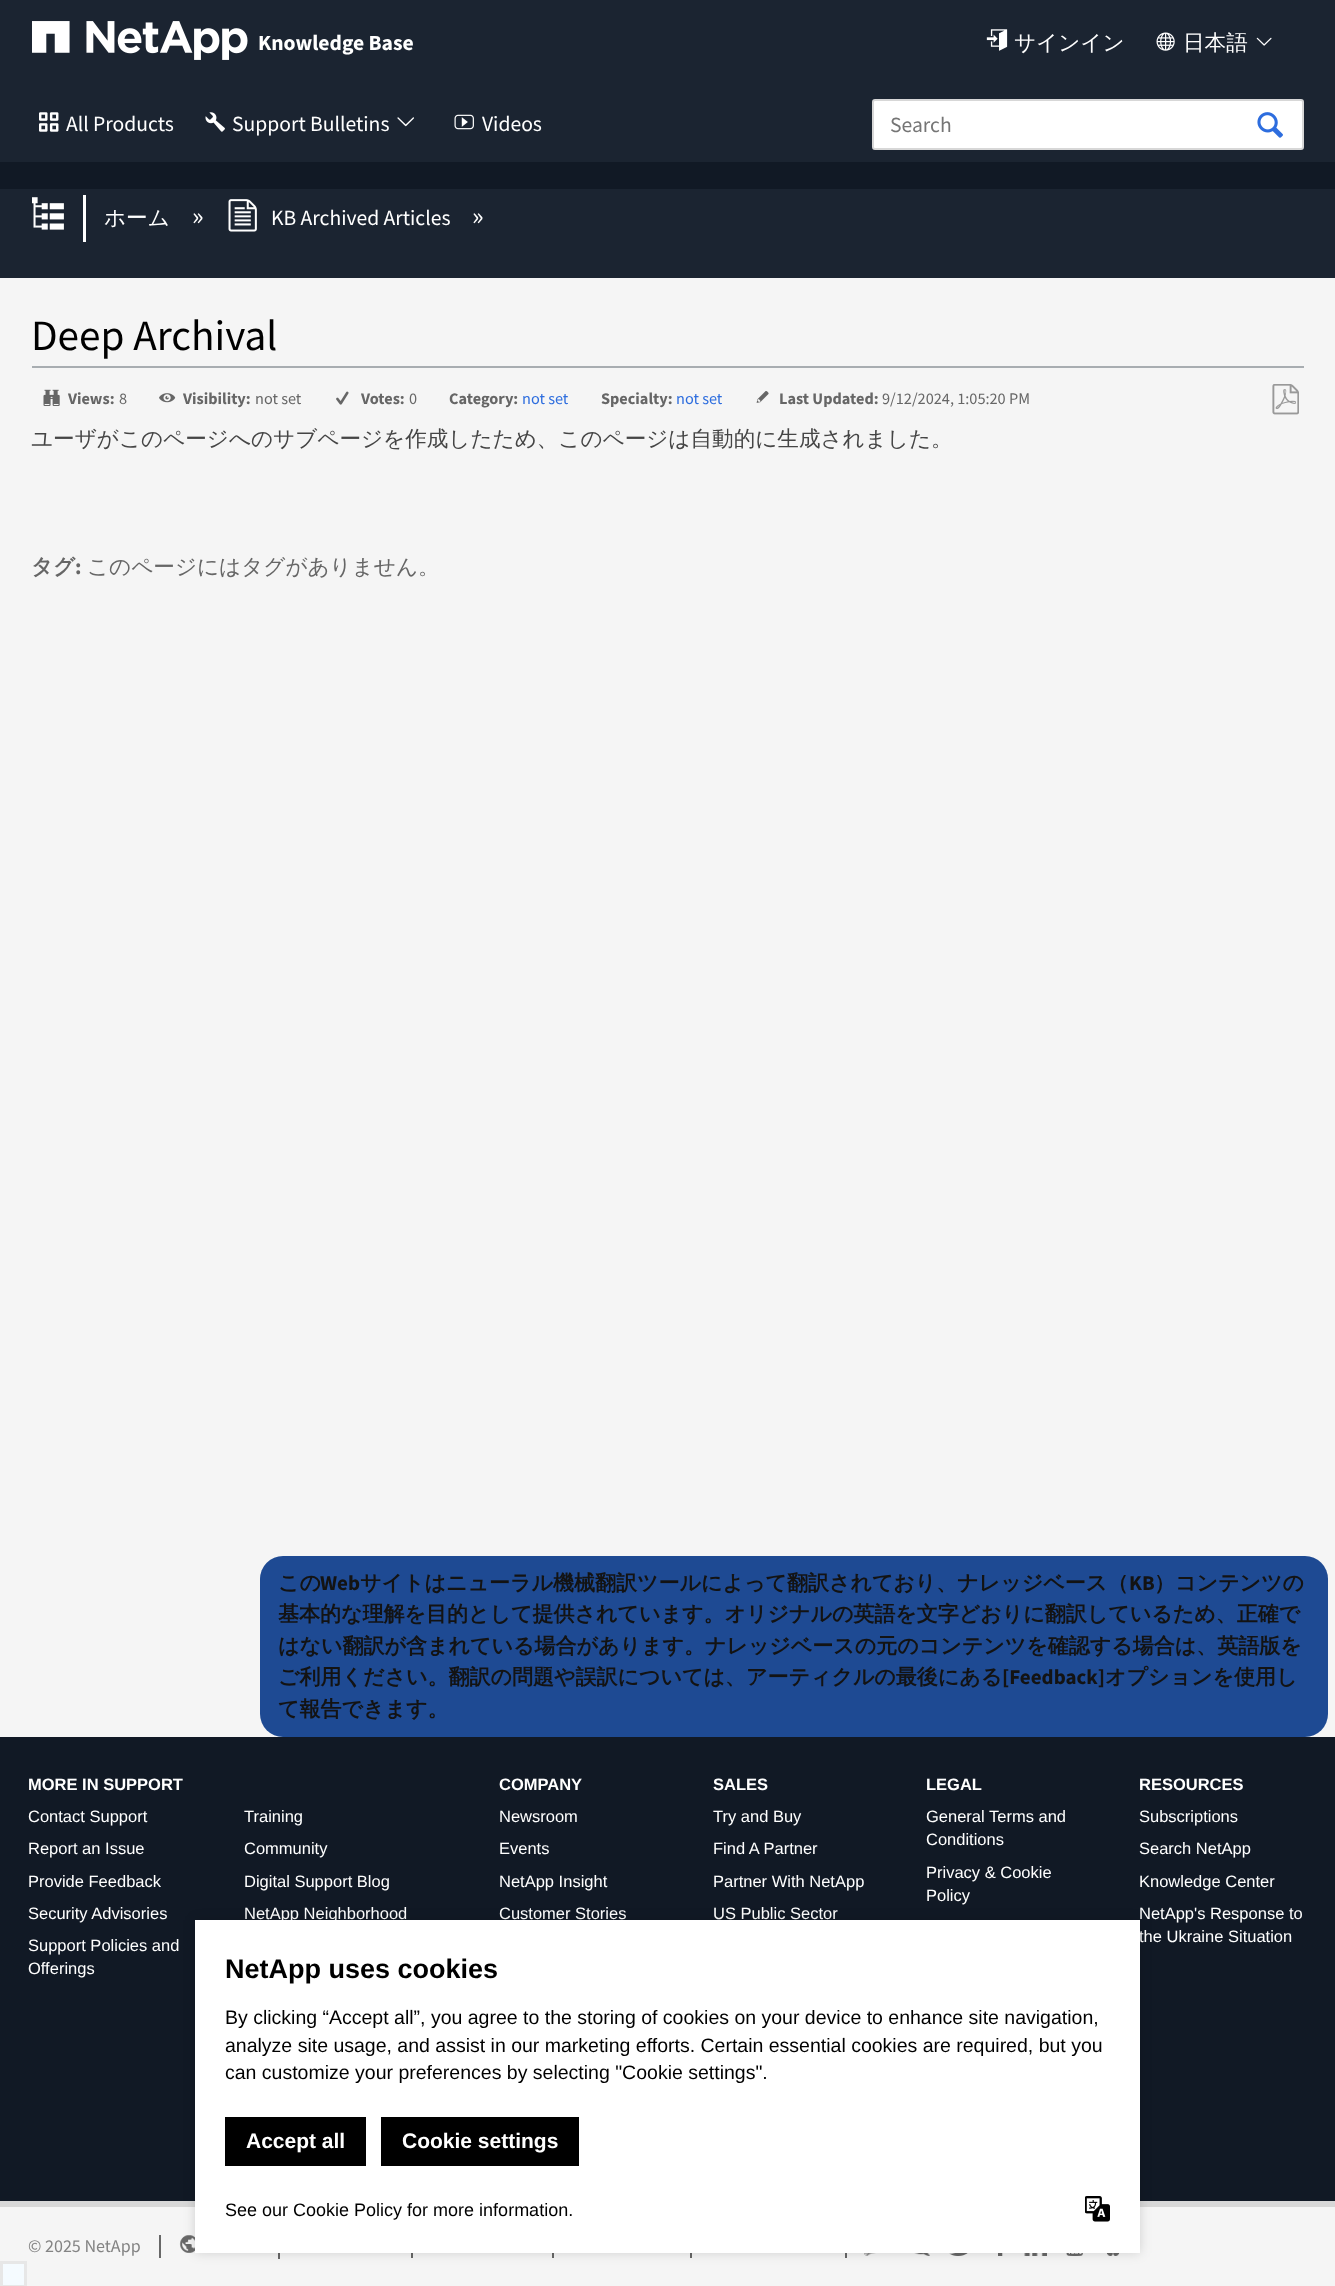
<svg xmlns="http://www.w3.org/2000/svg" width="1335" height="2286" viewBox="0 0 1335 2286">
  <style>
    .t1 { font: bold 21.6px Source Sans Pro; fill: #fff; }
    .t2 { font: 500 21.6px WenQuanYi Zen Hei; fill: #fff; }
    .t3 { font: 21.6px Source Sans Pro; fill: #fff; }
    .t4 { font: 21.6px Source Sans Pro; fill: #757575; }
    .t5 { font: 27px Source Sans Pro; fill: #fff; }
    .t6 { font: 43.25px Source Sans Pro; fill: #000; }
    .t7 { font: bold 16.25px Source Sans Pro; fill: #666; }
    .t8 { font: 16.25px Source Sans Pro; fill: #666; }
    .t9 { font: 16.25px Source Sans Pro; fill: #2d6dde; }
    .t10 { font: 500 21.6px WenQuanYi Zen Hei; fill: #454545; }
    .t11 { font: bold 21.6px WenQuanYi Zen Hei; fill: #666; }
    .t12 { font: bold 21.6px Source Sans Pro; fill: #666; }
    .t13 { font: 500 21.6px WenQuanYi Zen Hei; fill: #666; }
    .t14 { font: bold 21px WenQuanYi Zen Hei; fill: #131313; }
    .t15 { font: bold 21px Source Sans Pro; fill: #131313; }
    .t16 { font: bold 16.5px Liberation Sans; fill: #fff; }
    .t17 { font: 16.5px Liberation Sans; fill: #fff; }
    .t18 { font: 18px Source Sans Pro; fill: #848484; }
    .t19 { font: bold 27px Liberation Sans; fill: #000; }
    .t20 { font: 19.5px Liberation Sans; fill: #000; }
    .t21 { font: bold 21px Liberation Sans; fill: #fff; }
    .t22 { font: 18px Liberation Sans; fill: #000; }
  </style>
  <rect width="100%" height="100%" fill="#f5f5f5"/>
  <rect x="0" y="162" width="1335" height="27" fill="#111925"/>
  <rect x="0" y="0" width="1335" height="162" fill="#1b2431"/>
  <image x="32" y="21" width="216" height="39" href="images/1.png"/>
  <text x="258" y="50" class="t1">Knowledge Base</text>
  <image x="986" y="29" width="22" height="22" href="images/2.png"/>
  <text x="1014" y="50" class="t2">サインイン</text>
  <image x="1156" y="32" width="19" height="19" href="images/3.png"/>
  <text x="1183" y="50" class="t2">日本語</text>
  <image x="1256" y="37" width="16" height="9" href="images/4.png"/>
  <image x="39" y="112" width="20" height="20" href="images/5.png"/>
  <text x="66" y="131" class="t3">All Products</text>
  <image x="205" y="112" width="20" height="20" href="images/6.png"/>
  <text x="232" y="131" class="t3">Support Bulletins</text>
  <image x="397" y="117" width="17" height="10" href="images/7.png"/>
  <image x="454" y="114" width="20" height="16" href="images/8.png"/>
  <text x="482" y="131" class="t3">Videos</text>
  <rect x="873" y="100" width="430" height="49" rx="2" fill="#fff" stroke="#d7d7d7" stroke-width="2"/>
  <text x="890" y="132" class="t4">Search</text>
  <image x="1257" y="112" width="26" height="26" href="images/9.png"/>
  <rect x="0" y="189" width="1335" height="89" fill="#1b2431"/>
  <image x="32" y="197" width="32" height="33" href="images/10.png"/>
  <rect x="83" y="195" width="3" height="47" fill="#fff"/>
  <text x="104" y="225" class="t2">ホーム</text>
  <text x="192" y="225" class="t5">»</text>
  <image x="228" y="199" width="29" height="33" href="images/11.png"/>
  <text x="271" y="225" class="t3">KB Archived Articles</text>
  <text x="472" y="225" class="t5">»</text>
  <rect x="32" y="366" width="1272" height="2" fill="#a8adb1"/>
  <text x="31" y="350" class="t6">Deep Archival</text>
  <image x="1272" y="384" width="27" height="31" href="images/12.png"/>
  <image x="43" y="389" width="17" height="17" href="images/13.png"/>
  <text x="68" y="404" class="t7">Views:</text>
  <text x="119" y="404" class="t8">8</text>
  <image x="159" y="393" width="17" height="10" href="images/14.png"/>
  <text x="183" y="404" class="t7">Visibility:</text>
  <text x="255" y="404" class="t8">not set</text>
  <image x="336" y="391" width="13" height="14" href="images/15.png"/>
  <text x="361" y="404" class="t7">Votes:</text>
  <text x="409" y="404" class="t8">0</text>
  <text x="449" y="404" class="t7">Category:</text>
  <text x="522" y="404" class="t9">not set</text>
  <text x="601" y="404" class="t7">Specialty:</text>
  <text x="676" y="404" class="t9">not set</text>
  <image x="756" y="391" width="13" height="12" href="images/16.png"/>
  <text x="779" y="404" class="t7">Last Updated:</text>
  <text x="882" y="404" class="t8">9/12/2024, 1:05:20 PM</text>
  <text x="31" y="446" class="t10">ユーザがこのページへのサブページを作成したため、このページは自動的に生成されました。</text>
  <text x="31" y="574" class="t11">タグ</text>
  <text x="75" y="574" class="t12">:</text>
  <text x="87" y="574" class="t13">このページにはタグがありません。</text>
  <rect x="1.5" y="2262.5" width="24" height="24" fill="#f5fbff" stroke="#e7e7e7" stroke-width="3"/>
  <rect x="260" y="1556" width="1068" height="181" rx="23" fill="#1e4a93"/>
  <text x="278" y="1590" class="t14">この</text>
  <text x="320" y="1590" class="t15">Web</text>
  <text x="360" y="1590" class="t14">サイトはニューラル機械翻訳ツールによって翻訳されており、ナレッジベース（</text>
  <text x="1129" y="1590" class="t15">KB</text>
  <text x="1154" y="1590" class="t14">）コンテンツの</text>
  <text x="278" y="1621" class="t14">基本的な理解を目的として提供されています。オリジナルの英語を文字どおりに翻訳しているため、正確で</text>
  <text x="278" y="1653" class="t14">はない翻訳が含まれている場合があります。ナレッジベースの元のコンテンツを確認する場合は、英語版を</text>
  <text x="278" y="1684" class="t14">ご利用ください。翻訳の問題や誤訳については、アーティクルの最後にある</text>
  <text x="1002" y="1684" class="t15">[Feedback]</text>
  <text x="1105" y="1684" class="t14">オプションを使用し</text>
  <text x="278" y="1716" class="t14">て報告できます。</text>
  <rect x="0" y="1737" width="1335" height="464" fill="#111925"/>
  <rect x="0" y="2201" width="1335" height="6" fill="#d7d7d7"/>
  <text x="28" y="1790" class="t16">MORE IN SUPPORT</text>
  <text x="28" y="1822" class="t17">Contact Support</text>
  <text x="28" y="1854" class="t17">Report an Issue</text>
  <text x="28" y="1887" class="t17">Provide Feedback</text>
  <text x="28" y="1919" class="t17">Security Advisories</text>
  <text x="28" y="1951" class="t17">Support Policies and</text>
  <text x="28" y="1974" class="t17">Offerings</text>
  <text x="244" y="1822" class="t17">Training</text>
  <text x="244" y="1854" class="t17">Community</text>
  <text x="244" y="1887" class="t17">Digital Support Blog</text>
  <text x="244" y="1919" class="t17">NetApp Neighborhood</text>
  <text x="499" y="1790" class="t16">COMPANY</text>
  <text x="499" y="1822" class="t17">Newsroom</text>
  <text x="499" y="1854" class="t17">Events</text>
  <text x="499" y="1887" class="t17">NetApp Insight</text>
  <text x="499" y="1919" class="t17">Customer Stories</text>
  <text x="713" y="1790" class="t16">SALES</text>
  <text x="713" y="1822" class="t17">Try and Buy</text>
  <text x="713" y="1854" class="t17">Find A Partner</text>
  <text x="713" y="1887" class="t17">Partner With NetApp</text>
  <text x="713" y="1919" class="t17">US Public Sector</text>
  <text x="926" y="1790" class="t16">LEGAL</text>
  <text x="926" y="1822" class="t17">General Terms and</text>
  <text x="926" y="1845" class="t17">Conditions</text>
  <text x="926" y="1878" class="t17">Privacy &amp; Cookie</text>
  <text x="926" y="1901" class="t17">Policy</text>
  <text x="1139" y="1790" class="t16">RESOURCES</text>
  <text x="1139" y="1822" class="t17">Subscriptions</text>
  <text x="1139" y="1854" class="t17">Search NetApp</text>
  <text x="1139" y="1887" class="t17">Knowledge Center</text>
  <text x="1139" y="1919" class="t17">NetApp's Response to</text>
  <text x="1139" y="1942" class="t17">the Ukraine Situation</text>
  <rect x="159" y="2235" width="2" height="23" fill="#686868"/>
  <text x="28" y="2252" class="t18">© 2025 NetApp</text>
  <rect x="278" y="2253" width="2" height="6" fill="#686868"/>
  <image x="179" y="2235" width="16" height="18" href="images/17.png"/>
  <rect x="411" y="2253" width="2" height="5" fill="#686868"/>
  <rect x="552" y="2253" width="2" height="5" fill="#686868"/>
  <rect x="690" y="2253" width="2" height="5" fill="#686868"/>
  <rect x="845" y="2253" width="2" height="5" fill="#686868"/>
  <image x="864" y="2253" width="12" height="3" href="images/18.png"/>
  <image x="914" y="2253" width="16" height="3" href="images/19.png"/>
  <image x="949" y="2253" width="19" height="3" href="images/20.png"/>
  <image x="998" y="2253" width="5" height="3" href="images/21.png"/>
  <image x="1024" y="2253" width="23" height="3" href="images/22.png"/>
  <image x="1066" y="2253" width="17" height="3" href="images/23.png"/>
  <image x="1106" y="2253" width="14" height="3" href="images/24.png"/>
  <rect x="195" y="1920" width="945" height="333" fill="#00000026" filter="blur(6px)"/>
  <rect x="195" y="1920" width="945" height="333" fill="#fff"/>
  <text x="225" y="1978" class="t19">NetApp uses cookies</text>
  <text x="225" y="2024" class="t20">By clicking “Accept all”, you agree to the storing of cookies on your device to enhance site navigation,</text>
  <text x="225" y="2052" class="t20">analyze site usage, and assist in our marketing efforts. Certain essential cookies are required, but you</text>
  <text x="225" y="2079" class="t20">can customize your preferences by selecting "Cookie settings".</text>
  <rect x="225" y="2117" width="141" height="49" fill="#000"/>
  <text x="246" y="2148" class="t21">Accept all</text>
  <rect x="381" y="2117" width="198" height="49" fill="#000"/>
  <text x="402" y="2148" class="t21">Cookie settings</text>
  <text x="225" y="2216" class="t22">See our Cookie Policy for more information.</text>
  <image x="1085" y="2196" width="25" height="26" href="images/25.png"/>
</svg>
